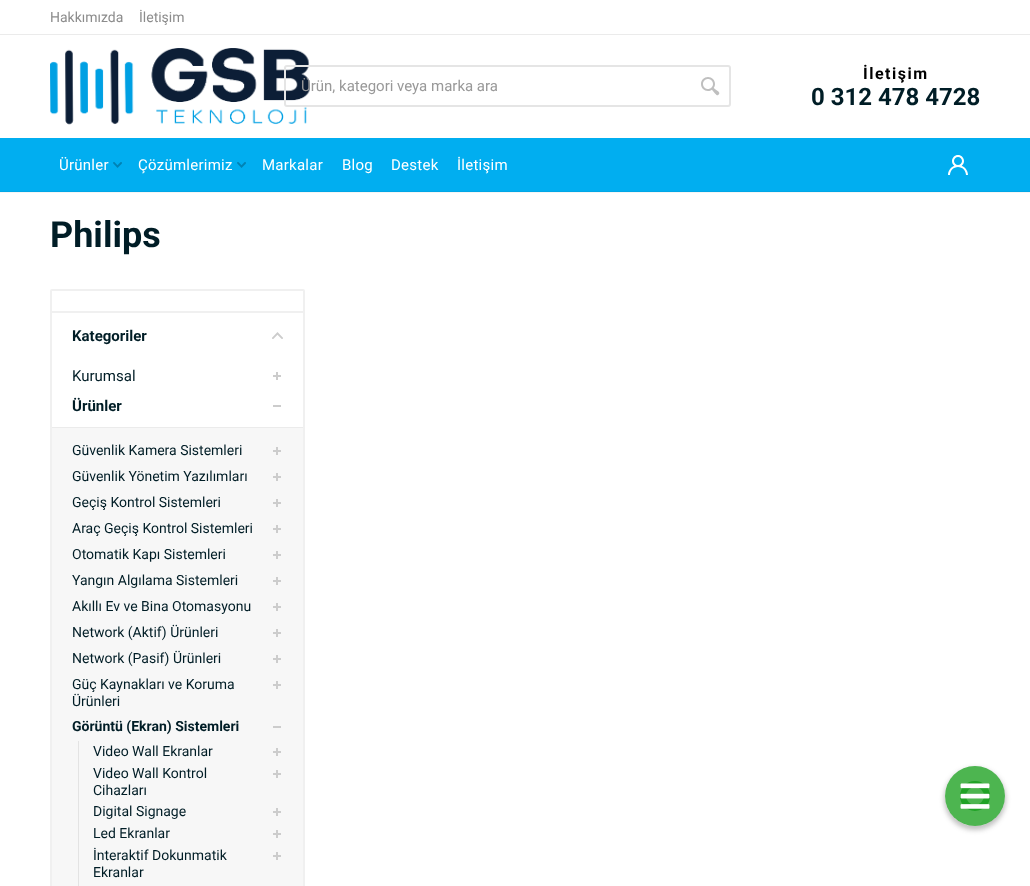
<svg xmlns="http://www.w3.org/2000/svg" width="1030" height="886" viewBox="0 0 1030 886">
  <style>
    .t1 { font: 14px Roboto; fill: #8c8c8c; }
    .t2 { font: 15px Roboto; fill: #999; }
    .t3 { font: bold 16px Roboto; letter-spacing: 1.5px; fill: #000; }
    .t4 { font: bold 24px Roboto; fill: #001d26; }
    .t5 { font: 15px Roboto; letter-spacing: 0.25px; fill: #fff; }
    .t6 { font: bold 36px Roboto; fill: #001d26; }
    .t7 { font: bold 15px Roboto; fill: #001d26; }
    .t8 { font: 15px Roboto; fill: #001d26; }
    .t9 { font: 14px Roboto; fill: #001d26; }
    .t10 { font: bold 14px Roboto; fill: #001d26; }
  </style>
  <defs>
    <clipPath id="clip1"><path d="M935 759H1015V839H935ZM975 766C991.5 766 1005 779.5 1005 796C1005 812.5 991.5 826 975 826C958.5 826 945 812.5 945 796C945 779.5 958.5 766 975 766Z" clip-rule="evenodd"/></clipPath>
  </defs>
  <rect width="100%" height="100%" fill="#fff"/>
  <rect x="-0.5" y="-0.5" width="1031" height="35" fill="none" stroke="#ebebeb"/>
  <text x="50" y="22" class="t1">Hakkımızda</text>
  <text x="139" y="22" class="t1">İletişim</text>
  <image x="50" y="48" width="260" height="77" href="images/1.png"/>
  <image x="701" y="77" width="19" height="19" href="images/2.png"/>
  <rect x="285" y="66" width="445" height="40" rx="2" fill="none" stroke="#e5e5e5" stroke-width="2"/>
  <text x="301" y="91" class="t2">Ürün, kategori veya marka ara</text>
  <text x="863" y="79" class="t3">İletişim</text>
  <text x="811" y="105" class="t4">0 312 478 4728</text>
  <rect x="0" y="192" width="1030" height="1" fill="#f5f5f5"/>
  <rect x="0" y="138" width="1030" height="53" fill="#01aef0"/>
  <rect x="0" y="191" width="1030" height="1" fill="#01a7e6"/>
  <text x="59" y="170" class="t5">Ürünler</text>
  <image x="113" y="162" width="9" height="6" href="images/3.png"/>
  <text x="138" y="170" class="t5">Çözümlerimiz</text>
  <image x="237" y="162" width="9" height="6" href="images/3.png"/>
  <text x="262" y="170" class="t5">Markalar</text>
  <text x="342" y="170" class="t5">Blog</text>
  <text x="391" y="170" class="t5">Destek</text>
  <text x="457" y="170" class="t5">İletişim</text>
  <image x="948" y="155" width="20" height="20" href="images/4.png"/>
  <text x="50" y="247" class="t6">Philips</text>
  <rect x="51" y="290" width="253" height="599" rx="1" fill="none" stroke="#f0f0f0" stroke-width="2"/>
  <rect x="52" y="311" width="251" height="2" fill="#f0f0f0"/>
  <text x="72" y="341" class="t7">Kategoriler</text>
  <image x="272" y="332" width="11" height="7" href="images/5.png"/>
  <text x="72" y="381" class="t8">Kurumsal</text>
  <rect x="273" y="375" width="8" height="2" fill="#ccc"/>
  <rect x="276" y="372" width="2" height="8" fill="#ccc"/>
  <text x="72" y="411" class="t7">Ürünler</text>
  <rect x="273" y="405" width="8" height="2" fill="#ccc"/>
  <rect x="52" y="428" width="251" height="458" fill="#f7f7f7"/>
  <rect x="52" y="427" width="251" height="1" fill="#ebebeb"/>
  <text x="72" y="455" class="t9">Güvenlik Kamera Sistemleri</text>
  <rect x="273" y="450" width="8" height="2" fill="#ccc"/>
  <rect x="276" y="447" width="2" height="8" fill="#ccc"/>
  <text x="72" y="481" class="t9">Güvenlik Yönetim Yazılımları</text>
  <rect x="273" y="476" width="8" height="2" fill="#ccc"/>
  <rect x="276" y="473" width="2" height="8" fill="#ccc"/>
  <text x="72" y="507" class="t9">Geçiş Kontrol Sistemleri</text>
  <rect x="273" y="502" width="8" height="2" fill="#ccc"/>
  <rect x="276" y="499" width="2" height="8" fill="#ccc"/>
  <text x="72" y="533" class="t9">Araç Geçiş Kontrol Sistemleri</text>
  <rect x="273" y="528" width="8" height="2" fill="#ccc"/>
  <rect x="276" y="525" width="2" height="8" fill="#ccc"/>
  <text x="72" y="559" class="t9">Otomatik Kapı Sistemleri</text>
  <rect x="273" y="554" width="8" height="2" fill="#ccc"/>
  <rect x="276" y="551" width="2" height="8" fill="#ccc"/>
  <text x="72" y="585" class="t9">Yangın Algılama Sistemleri</text>
  <rect x="273" y="580" width="8" height="2" fill="#ccc"/>
  <rect x="276" y="577" width="2" height="8" fill="#ccc"/>
  <text x="72" y="611" class="t9">Akıllı Ev ve Bina Otomasyonu</text>
  <rect x="273" y="606" width="8" height="2" fill="#ccc"/>
  <rect x="276" y="603" width="2" height="8" fill="#ccc"/>
  <text x="72" y="637" class="t9">Network (Aktif) Ürünleri</text>
  <rect x="273" y="632" width="8" height="2" fill="#ccc"/>
  <rect x="276" y="629" width="2" height="8" fill="#ccc"/>
  <text x="72" y="663" class="t9">Network (Pasif) Ürünleri</text>
  <rect x="273" y="658" width="8" height="2" fill="#ccc"/>
  <rect x="276" y="655" width="2" height="8" fill="#ccc"/>
  <text x="72" y="689" class="t9">Güç Kaynakları ve Koruma</text>
  <rect x="273" y="684" width="8" height="2" fill="#ccc"/>
  <rect x="276" y="681" width="2" height="8" fill="#ccc"/>
  <text x="72" y="706" class="t9">Ürünleri</text>
  <text x="72" y="731" class="t10">Görüntü (Ekran) Sistemleri</text>
  <rect x="273" y="726" width="8" height="2" fill="#ccc"/>
  <rect x="78" y="741" width="1" height="145" fill="#e3e3e3"/>
  <text x="93" y="756" class="t9">Video Wall Ekranlar</text>
  <rect x="273" y="751" width="8" height="2" fill="#ccc"/>
  <rect x="276" y="748" width="2" height="8" fill="#ccc"/>
  <text x="93" y="778" class="t9">Video Wall Kontrol</text>
  <rect x="273" y="773" width="8" height="2" fill="#ccc"/>
  <rect x="276" y="770" width="2" height="8" fill="#ccc"/>
  <text x="93" y="795" class="t9">Cihazları</text>
  <text x="93" y="816" class="t9">Digital Signage</text>
  <rect x="273" y="811" width="8" height="2" fill="#ccc"/>
  <rect x="276" y="808" width="2" height="8" fill="#ccc"/>
  <text x="93" y="838" class="t9">Led Ekranlar</text>
  <rect x="273" y="833" width="8" height="2" fill="#ccc"/>
  <rect x="276" y="830" width="2" height="8" fill="#ccc"/>
  <text x="93" y="860" class="t9">İnteraktif Dokunmatik</text>
  <rect x="273" y="855" width="8" height="2" fill="#ccc"/>
  <rect x="276" y="852" width="2" height="8" fill="#ccc"/>
  <text x="93" y="877" class="t9">Ekranlar</text>
  <circle cx="975" cy="796" r="30" fill="#4db550"/>
  <circle cx="975" cy="796" r="12" fill="none" stroke="#20a226" stroke-width="6"/>
  <image x="960" y="783" width="30" height="26" href="images/6.png"/>
  <g clip-path="url(#clip1)">
    <rect x="944" y="768" width="62" height="62" rx="31" fill="#3333334d" filter="blur(2.5px)"/>
  </g>
</svg>
